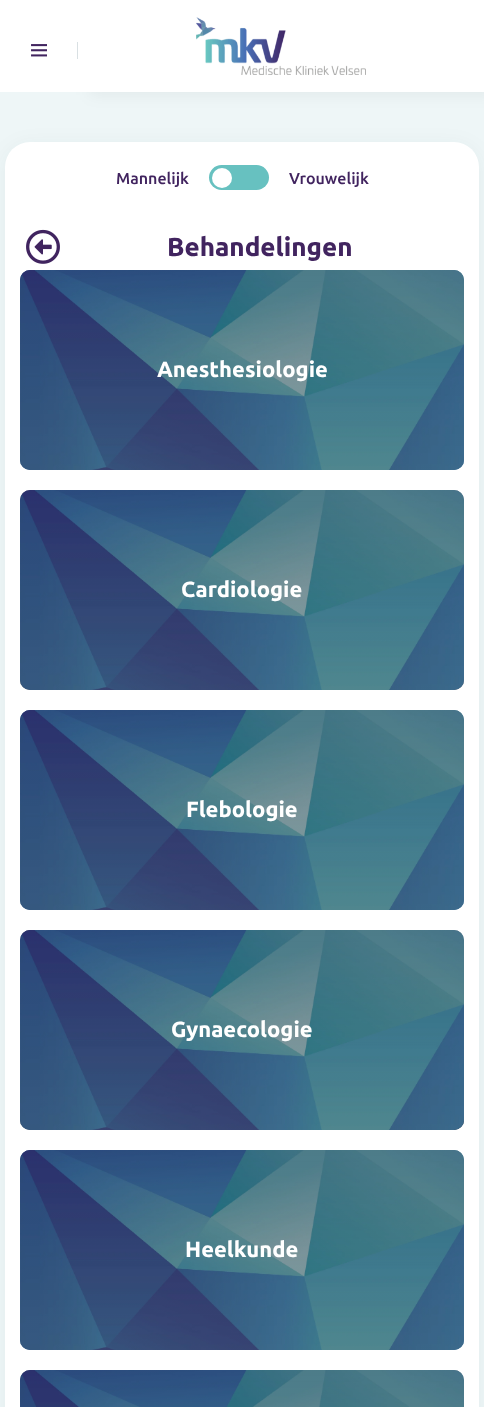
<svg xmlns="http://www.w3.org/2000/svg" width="484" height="1407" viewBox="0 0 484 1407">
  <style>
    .t1 { font: 500 16px Ubuntu; fill: #41245f; }
    .t2 { font: bold 26px Ubuntu; fill: #41245f; }
    .t3 { font: bold 22px Ubuntu; fill: #fff; }
  </style>
  <rect width="100%" height="100%" fill="#eef6f7"/>
  <rect x="89" y="3" width="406" height="92" fill="#0000000d" filter="blur(8px)"/>
  <rect x="0" y="0" width="484" height="92" fill="#fff"/>
  <image x="196" y="17" width="170" height="58" href="images/1.png"/>
  <image x="31" y="44" width="16" height="13" href="images/2.png"/>
  <rect x="77" y="42" width="1" height="17" fill="#d9e0e3"/>
  <rect x="5" y="145" width="474" height="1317" rx="25" fill="#1d26260d" filter="blur(10px)"/>
  <rect x="5" y="142" width="474" height="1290" rx="25" fill="#fff"/>
  <text x="116" y="184" class="t1">Mannelijk</text>
  <rect x="209" y="165" width="60" height="25" rx="12.5" fill="#67c1c0"/>
  <circle cx="222" cy="178" r="10" fill="#fff"/>
  <text x="289" y="184" class="t1">Vrouwelijk</text>
  <image x="26" y="229" width="34" height="35" href="images/3.png"/>
  <text x="167" y="256" class="t2">Behandelingen</text>
  <image x="20" y="270" width="444" height="200" href="images/4.png"/>
  <image x="20" y="270" width="444" height="200" href="images/5.png"/>
  <text x="157" y="377" class="t3">Anesthesiologie</text>
  <image x="20" y="490" width="444" height="200" href="images/6.png"/>
  <image x="20" y="490" width="444" height="200" href="images/7.png"/>
  <text x="181" y="597" class="t3">Cardiologie</text>
  <image x="20" y="710" width="444" height="200" href="images/8.png"/>
  <image x="20" y="710" width="444" height="200" href="images/9.png"/>
  <text x="186" y="817" class="t3">Flebologie</text>
  <image x="20" y="930" width="444" height="200" href="images/10.png"/>
  <image x="20" y="930" width="444" height="200" href="images/11.png"/>
  <text x="171" y="1037" class="t3">Gynaecologie</text>
  <image x="20" y="1150" width="444" height="200" href="images/12.png"/>
  <image x="20" y="1150" width="444" height="200" href="images/13.png"/>
  <text x="185" y="1257" class="t3">Heelkunde</text>
  <image x="20" y="1370" width="444" height="10" href="images/14.png"/>
  <image x="20" y="1370" width="444" height="37" href="images/15.png"/>
</svg>
